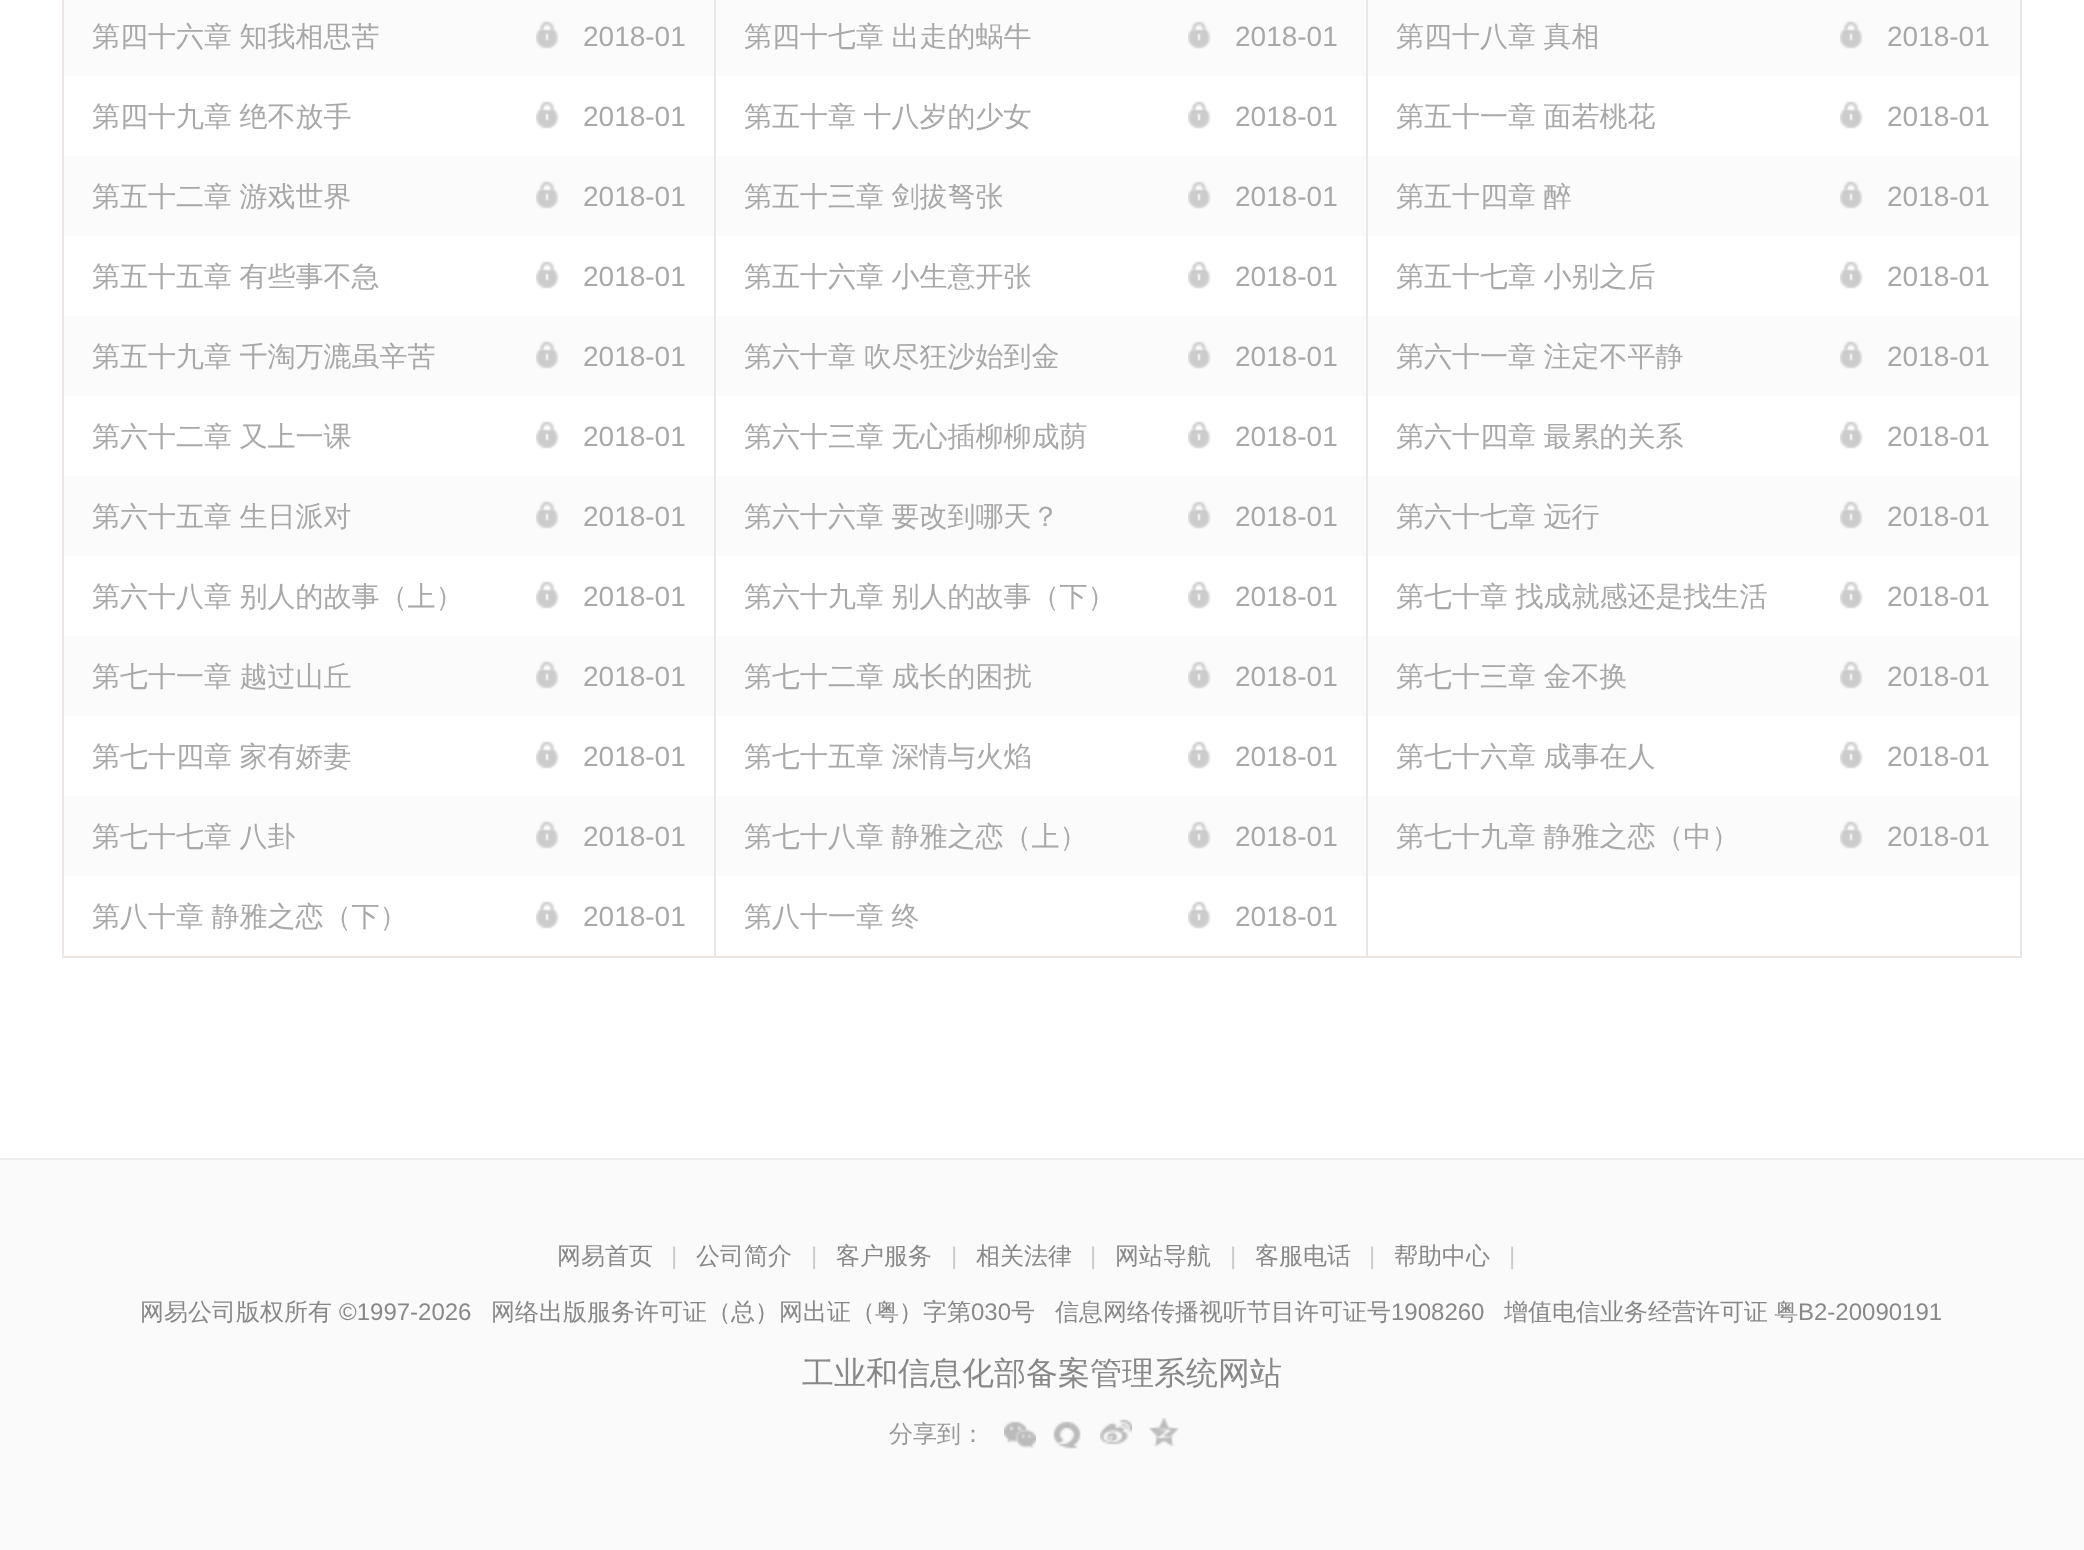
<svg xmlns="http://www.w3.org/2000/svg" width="2084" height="1550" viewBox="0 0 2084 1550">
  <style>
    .t1 { font: 500 28px WenQuanYi Zen Hei; fill: #a8a8a8; }
    .t2 { font: 28px Liberation Sans; fill: #a8a8a8; }
    .t3 { font: 500 24px WenQuanYi Zen Hei; fill: #888; }
    .t4 { font: 24px Liberation Sans; fill: #ccc; }
    .t5 { font: 24px Liberation Sans; fill: #888; }
    .t6 { font: 500 32px WenQuanYi Zen Hei; fill: #888; }
    .t7 { font: 500 24px WenQuanYi Zen Hei; fill: #999; }
  </style>
  <rect width="100%" height="100%" fill="#fff"/>
  <rect x="63" y="-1" width="1958" height="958" fill="none" stroke="#ebe6e1" stroke-width="2"/>
  <rect x="64" y="0" width="650" height="76" fill="#fbfbfb"/>
  <rect x="714" y="0" width="2" height="956" fill="#ebe6e1"/>
  <text x="92" y="46" word-spacing="-1" class="t1">第四十六章 知我相思苦</text>
  <image x="536" y="21" width="23" height="28" href="images/1.png"/>
  <text x="583" y="46" class="t2">2018-01</text>
  <rect x="716" y="0" width="650" height="76" fill="#fbfbfb"/>
  <rect x="1366" y="0" width="2" height="956" fill="#ebe6e1"/>
  <text x="744" y="46" word-spacing="-1" class="t1">第四十七章 出走的蜗牛</text>
  <image x="1188" y="21" width="23" height="28" href="images/1.png"/>
  <text x="1235" y="46" class="t2">2018-01</text>
  <rect x="1368" y="0" width="652" height="76" fill="#fbfbfb"/>
  <text x="1396" y="46" word-spacing="-1" class="t1">第四十八章 真相</text>
  <image x="1840" y="21" width="23" height="28" href="images/1.png"/>
  <text x="1887" y="46" class="t2">2018-01</text>
  <text x="92" y="126" word-spacing="-1" class="t1">第四十九章 绝不放手</text>
  <image x="536" y="101" width="23" height="28" href="images/2.png"/>
  <text x="583" y="126" class="t2">2018-01</text>
  <text x="744" y="126" word-spacing="-1" class="t1">第五十章 十八岁的少女</text>
  <image x="1188" y="101" width="23" height="28" href="images/2.png"/>
  <text x="1235" y="126" class="t2">2018-01</text>
  <text x="1396" y="126" word-spacing="-1" class="t1">第五十一章 面若桃花</text>
  <image x="1840" y="101" width="23" height="28" href="images/2.png"/>
  <text x="1887" y="126" class="t2">2018-01</text>
  <rect x="64" y="156" width="650" height="80" fill="#fbfbfb"/>
  <text x="92" y="206" word-spacing="-1" class="t1">第五十二章 游戏世界</text>
  <image x="536" y="181" width="23" height="28" href="images/1.png"/>
  <text x="583" y="206" class="t2">2018-01</text>
  <rect x="716" y="156" width="650" height="80" fill="#fbfbfb"/>
  <text x="744" y="206" word-spacing="-1" class="t1">第五十三章 剑拔弩张</text>
  <image x="1188" y="181" width="23" height="28" href="images/1.png"/>
  <text x="1235" y="206" class="t2">2018-01</text>
  <rect x="1368" y="156" width="652" height="80" fill="#fbfbfb"/>
  <text x="1396" y="206" word-spacing="-1" class="t1">第五十四章 醉</text>
  <image x="1840" y="181" width="23" height="28" href="images/1.png"/>
  <text x="1887" y="206" class="t2">2018-01</text>
  <text x="92" y="286" word-spacing="-1" class="t1">第五十五章 有些事不急</text>
  <image x="536" y="261" width="23" height="28" href="images/2.png"/>
  <text x="583" y="286" class="t2">2018-01</text>
  <text x="744" y="286" word-spacing="-1" class="t1">第五十六章 小生意开张</text>
  <image x="1188" y="261" width="23" height="28" href="images/2.png"/>
  <text x="1235" y="286" class="t2">2018-01</text>
  <text x="1396" y="286" word-spacing="-1" class="t1">第五十七章 小别之后</text>
  <image x="1840" y="261" width="23" height="28" href="images/2.png"/>
  <text x="1887" y="286" class="t2">2018-01</text>
  <rect x="64" y="316" width="650" height="80" fill="#fbfbfb"/>
  <text x="92" y="366" word-spacing="-1" class="t1">第五十九章 千淘万漉虽辛苦</text>
  <image x="536" y="341" width="23" height="28" href="images/1.png"/>
  <text x="583" y="366" class="t2">2018-01</text>
  <rect x="716" y="316" width="650" height="80" fill="#fbfbfb"/>
  <text x="744" y="366" word-spacing="-1" class="t1">第六十章 吹尽狂沙始到金</text>
  <image x="1188" y="341" width="23" height="28" href="images/1.png"/>
  <text x="1235" y="366" class="t2">2018-01</text>
  <rect x="1368" y="316" width="652" height="80" fill="#fbfbfb"/>
  <text x="1396" y="366" word-spacing="-1" class="t1">第六十一章 注定不平静</text>
  <image x="1840" y="341" width="23" height="28" href="images/1.png"/>
  <text x="1887" y="366" class="t2">2018-01</text>
  <text x="92" y="446" word-spacing="-1" class="t1">第六十二章 又上一课</text>
  <image x="536" y="421" width="23" height="28" href="images/2.png"/>
  <text x="583" y="446" class="t2">2018-01</text>
  <text x="744" y="446" word-spacing="-1" class="t1">第六十三章 无心插柳柳成荫</text>
  <image x="1188" y="421" width="23" height="28" href="images/2.png"/>
  <text x="1235" y="446" class="t2">2018-01</text>
  <text x="1396" y="446" word-spacing="-1" class="t1">第六十四章 最累的关系</text>
  <image x="1840" y="421" width="23" height="28" href="images/2.png"/>
  <text x="1887" y="446" class="t2">2018-01</text>
  <rect x="64" y="476" width="650" height="80" fill="#fbfbfb"/>
  <text x="92" y="526" word-spacing="-1" class="t1">第六十五章 生日派对</text>
  <image x="536" y="501" width="23" height="28" href="images/1.png"/>
  <text x="583" y="526" class="t2">2018-01</text>
  <rect x="716" y="476" width="650" height="80" fill="#fbfbfb"/>
  <text x="744" y="526" word-spacing="-1" class="t1">第六十六章 要改到哪天？</text>
  <image x="1188" y="501" width="23" height="28" href="images/1.png"/>
  <text x="1235" y="526" class="t2">2018-01</text>
  <rect x="1368" y="476" width="652" height="80" fill="#fbfbfb"/>
  <text x="1396" y="526" word-spacing="-1" class="t1">第六十七章 远行</text>
  <image x="1840" y="501" width="23" height="28" href="images/1.png"/>
  <text x="1887" y="526" class="t2">2018-01</text>
  <text x="92" y="606" word-spacing="-1" class="t1">第六十八章 别人的故事（上）</text>
  <image x="536" y="581" width="23" height="28" href="images/2.png"/>
  <text x="583" y="606" class="t2">2018-01</text>
  <text x="744" y="606" word-spacing="-1" class="t1">第六十九章 别人的故事（下）</text>
  <image x="1188" y="581" width="23" height="28" href="images/2.png"/>
  <text x="1235" y="606" class="t2">2018-01</text>
  <text x="1396" y="606" word-spacing="-1" class="t1">第七十章 找成就感还是找生活</text>
  <image x="1840" y="581" width="23" height="28" href="images/2.png"/>
  <text x="1887" y="606" class="t2">2018-01</text>
  <rect x="64" y="636" width="650" height="80" fill="#fbfbfb"/>
  <text x="92" y="686" word-spacing="-1" class="t1">第七十一章 越过山丘</text>
  <image x="536" y="661" width="23" height="28" href="images/1.png"/>
  <text x="583" y="686" class="t2">2018-01</text>
  <rect x="716" y="636" width="650" height="80" fill="#fbfbfb"/>
  <text x="744" y="686" word-spacing="-1" class="t1">第七十二章 成长的困扰</text>
  <image x="1188" y="661" width="23" height="28" href="images/1.png"/>
  <text x="1235" y="686" class="t2">2018-01</text>
  <rect x="1368" y="636" width="652" height="80" fill="#fbfbfb"/>
  <text x="1396" y="686" word-spacing="-1" class="t1">第七十三章 金不换</text>
  <image x="1840" y="661" width="23" height="28" href="images/1.png"/>
  <text x="1887" y="686" class="t2">2018-01</text>
  <text x="92" y="766" word-spacing="-1" class="t1">第七十四章 家有娇妻</text>
  <image x="536" y="741" width="23" height="28" href="images/2.png"/>
  <text x="583" y="766" class="t2">2018-01</text>
  <text x="744" y="766" word-spacing="-1" class="t1">第七十五章 深情与火焰</text>
  <image x="1188" y="741" width="23" height="28" href="images/2.png"/>
  <text x="1235" y="766" class="t2">2018-01</text>
  <text x="1396" y="766" word-spacing="-1" class="t1">第七十六章 成事在人</text>
  <image x="1840" y="741" width="23" height="28" href="images/2.png"/>
  <text x="1887" y="766" class="t2">2018-01</text>
  <rect x="64" y="796" width="650" height="80" fill="#fbfbfb"/>
  <text x="92" y="846" word-spacing="-1" class="t1">第七十七章 八卦</text>
  <image x="536" y="821" width="23" height="28" href="images/1.png"/>
  <text x="583" y="846" class="t2">2018-01</text>
  <rect x="716" y="796" width="650" height="80" fill="#fbfbfb"/>
  <text x="744" y="846" word-spacing="-1" class="t1">第七十八章 静雅之恋（上）</text>
  <image x="1188" y="821" width="23" height="28" href="images/1.png"/>
  <text x="1235" y="846" class="t2">2018-01</text>
  <rect x="1368" y="796" width="652" height="80" fill="#fbfbfb"/>
  <text x="1396" y="846" word-spacing="-1" class="t1">第七十九章 静雅之恋（中）</text>
  <image x="1840" y="821" width="23" height="28" href="images/1.png"/>
  <text x="1887" y="846" class="t2">2018-01</text>
  <text x="92" y="926" word-spacing="-1" class="t1">第八十章 静雅之恋（下）</text>
  <image x="536" y="901" width="23" height="28" href="images/2.png"/>
  <text x="583" y="926" class="t2">2018-01</text>
  <text x="744" y="926" word-spacing="-1" class="t1">第八十一章 终</text>
  <image x="1188" y="901" width="23" height="28" href="images/2.png"/>
  <text x="1235" y="926" class="t2">2018-01</text>
  <rect x="0" y="1160" width="2084" height="390" fill="#fafafa"/>
  <rect x="0" y="1158" width="2084" height="2" fill="#eee"/>
  <text x="557" y="1264" class="t3">网易首页</text>
  <text x="671" y="1264" class="t4">|</text>
  <text x="696" y="1264" class="t3">公司简介</text>
  <text x="811" y="1264" class="t4">|</text>
  <text x="836" y="1264" class="t3">客户服务</text>
  <text x="951" y="1264" class="t4">|</text>
  <text x="976" y="1264" class="t3">相关法律</text>
  <text x="1090" y="1264" class="t4">|</text>
  <text x="1115" y="1264" class="t3">网站导航</text>
  <text x="1230" y="1264" class="t4">|</text>
  <text x="1255" y="1264" class="t3">客服电话</text>
  <text x="1369" y="1264" class="t4">|</text>
  <text x="1394" y="1264" class="t3">帮助中心</text>
  <text x="1509" y="1264" class="t4">|</text>
  <text x="140" y="1320" class="t3">网易公司版权所有</text>
  <text x="339" y="1320" class="t5">©1997-2026</text>
  <text x="491" y="1320" class="t3">网络出版服务许可证（总）网出证（粤）字第</text>
  <text x="971" y="1320" class="t5">030</text>
  <text x="1011" y="1320" class="t3">号</text>
  <text x="1055" y="1320" class="t3">信息网络传播视听节目许可证号</text>
  <text x="1391" y="1320" class="t5">1908260</text>
  <text x="1504" y="1320" word-spacing="-1" class="t3">增值电信业务经营许可证 粤</text>
  <text x="1798" y="1320" class="t5">B2-20090191</text>
  <text x="802" y="1384" class="t6">工业和信息化部备案管理系统网站</text>
  <text x="889" y="1442" class="t7">分享到：</text>
  <image x="1004" y="1421" width="32" height="28" href="images/3.png"/>
  <image x="1053" y="1421" width="28" height="28" href="images/4.png"/>
  <image x="1100" y="1419" width="32" height="26" href="images/5.png"/>
  <image x="1149" y="1418" width="30" height="29" href="images/6.png"/>
</svg>
